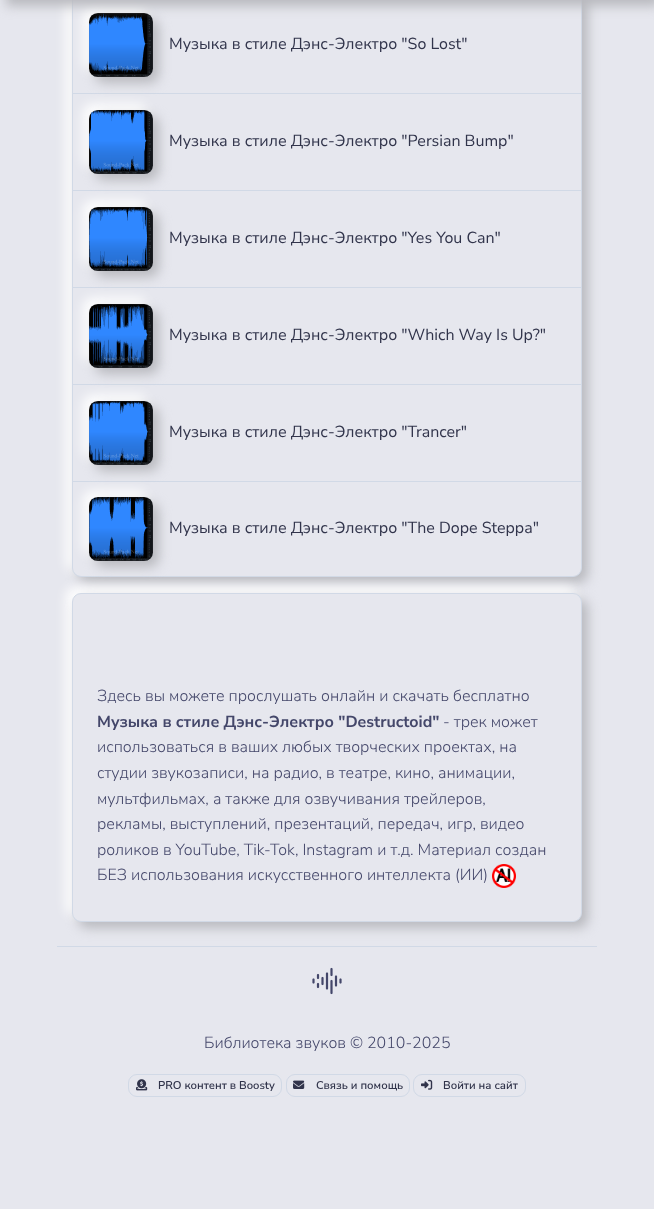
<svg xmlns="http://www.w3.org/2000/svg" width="654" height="1209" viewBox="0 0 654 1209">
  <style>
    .t1 { font: 16px Nunito Sans; fill: #31344b; }
    .t2 { font: 300 16px Nunito Sans; fill: #44476a; }
    .t3 { font: bold 16px Nunito Sans; fill: #44476a; }
    .t4 { font: 600 11.25px Nunito Sans; fill: #31344b; }
  </style>
  <rect width="100%" height="100%" fill="#e6e7ee"/>
  <rect x="66" y="-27" width="510" height="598" rx="9" fill="#fff" filter="blur(6px)"/>
  <rect x="78" y="-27" width="510" height="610" rx="9" fill="#b8b9be" filter="blur(6px)"/>
  <rect x="72.5" y="-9.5" width="509" height="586" rx="8.5" fill="#e6e7ee" stroke="#d1d9e6"/>
  <rect x="83" y="7" width="64" height="64" rx="9" fill="#fff" filter="blur(6px)"/>
  <rect x="73" y="93" width="508" height="1" fill="#d1d9e6"/>
  <rect x="95" y="19" width="64" height="64" rx="9" fill="#b8b9be" filter="blur(6px)"/>
  <image x="89" y="13" width="64" height="64" href="images/1.png"/>
  <rect x="6" y="-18" width="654" height="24" fill="#b8b9be" filter="blur(6px)"/>
  <text x="169" y="49" class="t1">Музыка в стиле Дэнс-Электро "So Lost"</text>
  <rect x="73" y="190" width="508" height="1" fill="#d1d9e6"/>
  <rect x="83" y="104" width="64" height="64" rx="9" fill="#fff" filter="blur(6px)"/>
  <rect x="95" y="116" width="64" height="64" rx="9" fill="#b8b9be" filter="blur(6px)"/>
  <image x="89" y="110" width="64" height="64" href="images/2.png"/>
  <text x="169" y="146" class="t1">Музыка в стиле Дэнс-Электро "Persian Bump"</text>
  <rect x="73" y="287" width="508" height="1" fill="#d1d9e6"/>
  <rect x="83" y="201" width="64" height="64" rx="9" fill="#fff" filter="blur(6px)"/>
  <rect x="95" y="213" width="64" height="64" rx="9" fill="#b8b9be" filter="blur(6px)"/>
  <image x="89" y="207" width="64" height="64" href="images/3.png"/>
  <text x="169" y="243" class="t1">Музыка в стиле Дэнс-Электро "Yes You Can"</text>
  <rect x="73" y="384" width="508" height="1" fill="#d1d9e6"/>
  <rect x="83" y="298" width="64" height="64" rx="9" fill="#fff" filter="blur(6px)"/>
  <rect x="95" y="310" width="64" height="64" rx="9" fill="#b8b9be" filter="blur(6px)"/>
  <image x="89" y="304" width="64" height="64" href="images/4.png"/>
  <text x="169" y="340" class="t1">Музыка в стиле Дэнс-Электро "Which Way Is Up?"</text>
  <rect x="73" y="481" width="508" height="1" fill="#d1d9e6"/>
  <rect x="83" y="395" width="64" height="64" rx="9" fill="#fff" filter="blur(6px)"/>
  <rect x="95" y="407" width="64" height="64" rx="9" fill="#b8b9be" filter="blur(6px)"/>
  <image x="89" y="401" width="64" height="64" href="images/5.png"/>
  <text x="169" y="437" class="t1">Музыка в стиле Дэнс-Электро "Trancer"</text>
  <rect x="83" y="491" width="64" height="64" rx="9" fill="#fff" filter="blur(6px)"/>
  <rect x="95" y="503" width="64" height="64" rx="9" fill="#b8b9be" filter="blur(6px)"/>
  <image x="89" y="497" width="64" height="64" href="images/6.png"/>
  <text x="169" y="533" class="t1">Музыка в стиле Дэнс-Электро "The Dope Steppa"</text>
  <rect x="66" y="587" width="510" height="329" rx="9" fill="#fff" filter="blur(6px)"/>
  <rect x="57" y="946" width="540" height="1" fill="#d1d9e6"/>
  <rect x="78" y="599" width="510" height="329" rx="9" fill="#b8b9be" filter="blur(6px)"/>
  <rect x="72.5" y="593.5" width="509" height="328" rx="8.5" fill="#e6e7ee" stroke="#d1d9e6"/>
  <text x="97" y="701" class="t2">Здесь вы можете прослушать онлайн и скачать бесплатно</text>
  <text x="97" y="727" class="t3">Музыка в стиле Дэнс-Электро "Destructoid"</text>
  <text x="443" y="727" class="t2">- трек может</text>
  <text x="97" y="752" class="t2">использоваться в ваших любых творческих проектах, на</text>
  <text x="97" y="778" class="t2">студии звукозаписи, на радио, в театре, кино, анимации,</text>
  <text x="97" y="804" class="t2">мультфильмах, а также для озвучивания трейлеров,</text>
  <text x="97" y="829" class="t2">рекламы, выступлений, презентаций, передач, игр, видео</text>
  <text x="97" y="855" class="t2">роликов в YouTube, Tik-Tok, Instagram и т.д. Материал создан</text>
  <text x="97" y="880" class="t2">БЕЗ использования искусственного интеллекта (ИИ)</text>
  <image x="492" y="864" width="24" height="24" href="images/7.png"/>
  <image x="312" y="967" width="30" height="28" href="images/8.png"/>
  <text x="204" y="1048" class="t2">Библиотека звуков © 2010-2025</text>
  <rect x="128.5" y="1074.5" width="153" height="22" rx="8.5" fill="none" stroke="#d1d9e6"/>
  <image x="136" y="1079" width="12" height="12" href="images/9.png"/>
  <text x="158" y="1089" class="t4">PRO контент в Boosty</text>
  <rect x="286.5" y="1074.5" width="123" height="22" rx="8.5" fill="none" stroke="#d1d9e6"/>
  <image x="293" y="1080" width="12" height="9" href="images/10.png"/>
  <text x="316" y="1089" class="t4">Связь и помощь</text>
  <rect x="413.5" y="1074.5" width="112" height="22" rx="8.5" fill="none" stroke="#d1d9e6"/>
  <image x="421" y="1079" width="12" height="11" href="images/11.png"/>
  <text x="443" y="1089" class="t4">Войти на сайт</text>
</svg>
